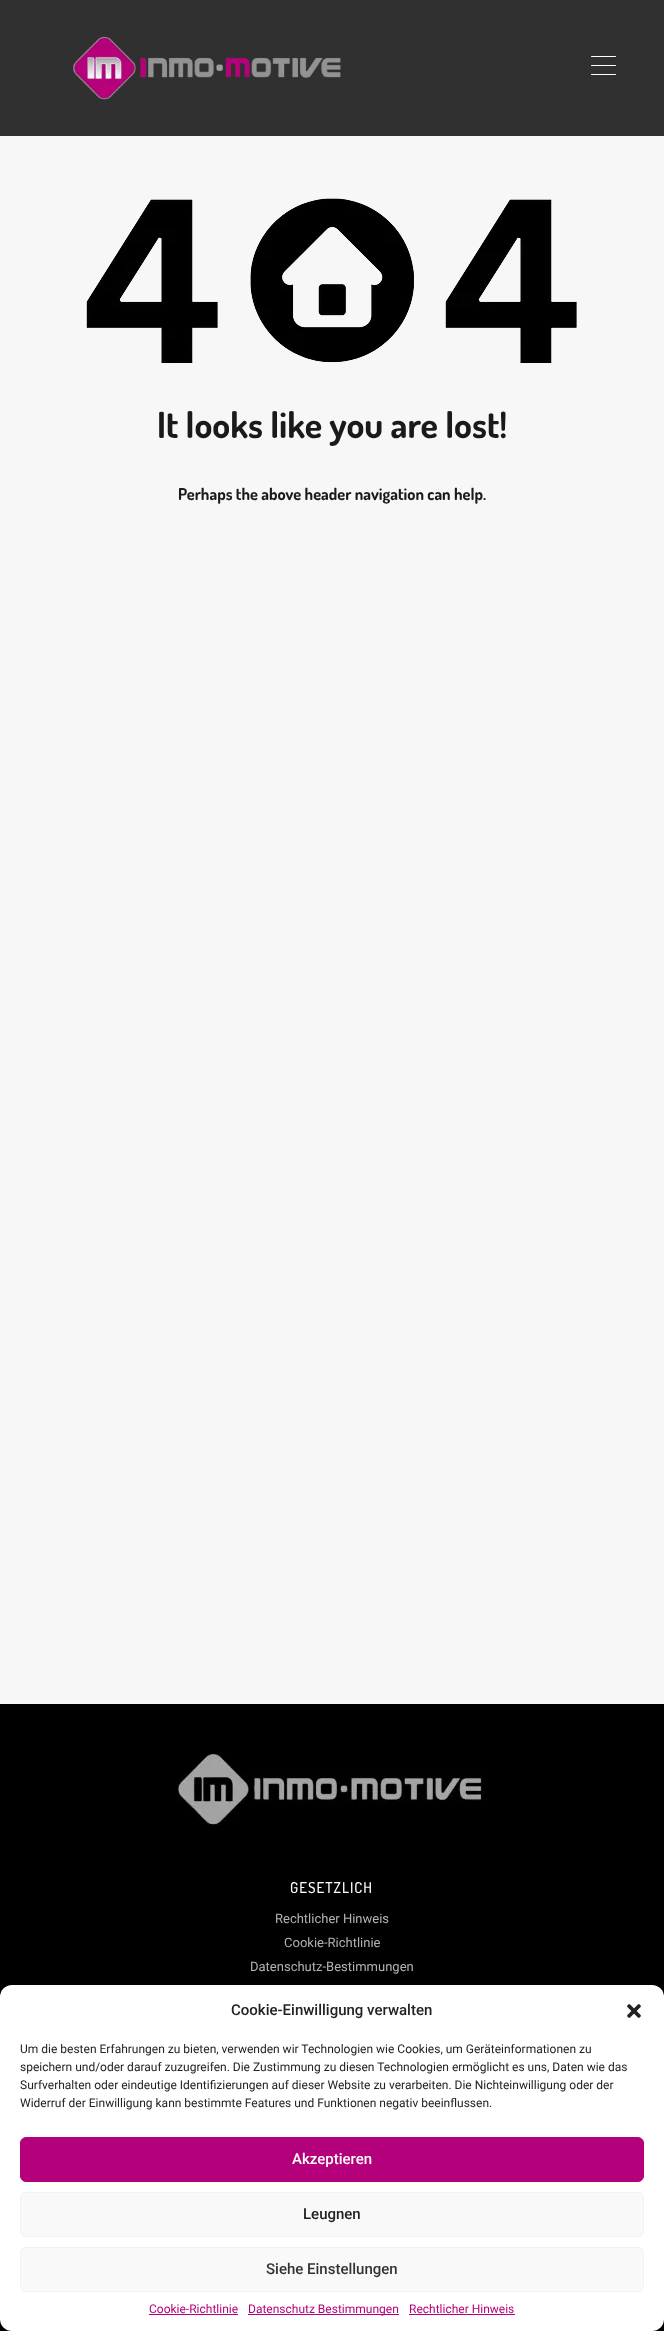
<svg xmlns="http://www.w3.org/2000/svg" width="664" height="2331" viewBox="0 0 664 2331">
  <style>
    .t1 { font: bold 36px Dosis; fill: #1a1a1a; }
    .t2 { font: bold 16.4px Dosis; fill: #1a1a1a; }
    .t3 { font: 500 15px Dosis; letter-spacing: 1px; fill: #fff; }
    .t4 { font: 13px Roboto; fill: #b3b3b3; }
    .t5 { font: 500 15px Roboto; fill: #222; }
    .t6 { font: 12px Roboto; fill: #222; }
    .t7 { font: 500 15px Roboto; fill: #fff; }
    .t8 { font: 500 15px Roboto; fill: #333; }
    .t9 { font: 12px Roboto; fill: #b5007c; }
  </style>
  <rect width="100%" height="100%" fill="#f7f7f7"/>
  <rect x="0" y="0" width="664" height="136" fill="#303030"/>
  <image x="73" y="36" width="268" height="64" href="images/1.png"/>
  <rect x="591" y="65" width="25" height="1" rx="0.5" fill="#fff"/>
  <rect x="591" y="56" width="25" height="1" rx="0.5" fill="#fff"/>
  <rect x="591" y="74" width="25" height="1" rx="0.5" fill="#fff"/>
  <image x="86" y="198" width="491" height="165" href="images/2.png"/>
  <text x="157" y="438" class="t1">It looks like you are lost!</text>
  <text x="178" y="500" class="t2">Perhaps the above header navigation can help.</text>
  <rect x="0" y="1704" width="664" height="627" fill="#000"/>
  <image x="177" y="1753" width="307" height="72" href="images/3.png"/>
  <text x="290" y="1893" class="t3">GESETZLICH</text>
  <text x="275" y="1923" class="t4">Rechtlicher Hinweis</text>
  <text x="284" y="1947" class="t4">Cookie-Richtlinie</text>
  <text x="250" y="1971" class="t4">Datenschutz-Bestimmungen</text>
  <rect x="0" y="1985" width="664" height="346" rx="12" fill="#fff"/>
  <text x="231" y="2015" class="t5">Cookie-Einwilligung verwalten</text>
  <image x="627" y="2004" width="14" height="14" href="images/4.png"/>
  <text x="20" y="2053" class="t6">Um die besten Erfahrungen zu bieten, verwenden wir Technologien wie Cookies, um Geräteinformationen zu</text>
  <text x="20" y="2071" class="t6">speichern und/oder darauf zuzugreifen. Die Zustimmung zu diesen Technologien ermöglicht es uns, Daten wie das</text>
  <text x="20" y="2089" class="t6">Surfverhalten oder eindeutige Identifizierungen auf dieser Website zu verarbeiten. Die Nichteinwilligung oder der</text>
  <text x="20" y="2107" class="t6">Widerruf der Einwilligung kann bestimmte Features und Funktionen negativ beeinflussen.</text>
  <rect x="20.5" y="2137.5" width="623" height="44" rx="5.5" fill="#b5007c" stroke="#b5007c"/>
  <text x="292" y="2164" class="t7">Akzeptieren</text>
  <rect x="20.5" y="2192.5" width="623" height="44" rx="5.5" fill="#f9f9f9" stroke="#f2f2f2"/>
  <text x="303" y="2219" class="t5">Leugnen</text>
  <rect x="20.5" y="2247.5" width="623" height="44" rx="5.5" fill="#f9f9f9" stroke="#f2f2f2"/>
  <text x="266" y="2274" class="t8">Siehe Einstellungen</text>
  <text x="149" y="2313" class="t9">Cookie-Richtlinie</text>
  <rect x="149" y="2314" width="89" height="1" fill="#b5007c"/>
  <rect x="248" y="2314" width="151" height="1" fill="#b5007c"/>
  <text x="248" y="2313" class="t9">Datenschutz Bestimmungen</text>
  <text x="409" y="2313" class="t9">Rechtlicher Hinweis</text>
  <rect x="409" y="2314" width="106" height="1" fill="#b5007c"/>
</svg>
